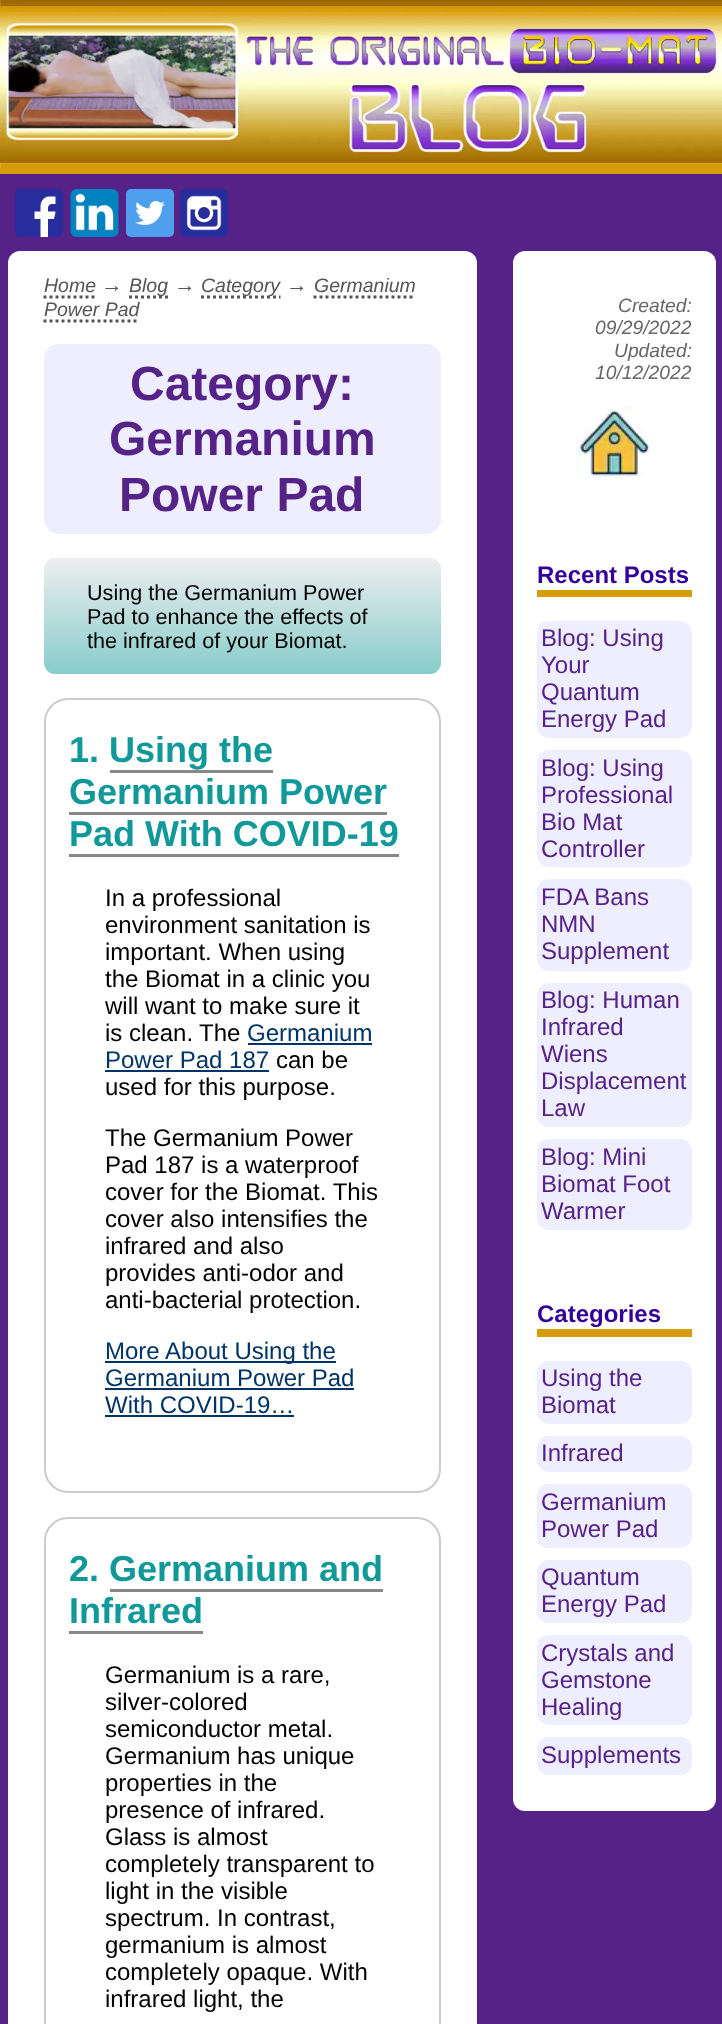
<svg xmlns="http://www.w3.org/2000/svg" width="722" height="2024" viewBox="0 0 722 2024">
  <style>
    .t1 { font: italic 19.5px Liberation Sans; fill: #555; }
    .t2 { font: italic 21.6px Liberation Sans; fill: #555; }
    .t3 { font: bold 48px Liberation Sans; fill: #528; }
    .t4 { font: 21.6px Liberation Sans; fill: #000; }
    .t5 { font: bold 36px Liberation Sans; fill: #199; }
    .t6 { font: 24px Liberation Sans; fill: #000; }
    .t7 { font: 24px Liberation Sans; fill: #036; }
    .t8 { font: italic 19.25px Liberation Sans; fill: #666; }
    .t9 { font: bold 24px Liberation Sans; fill: #309; }
    .t10 { font: 24px Liberation Sans; fill: #528; }
  </style>
  <defs>
    <linearGradient id="g1" gradientUnits="userSpaceOnUse" x1="242" y1="558" x2="242" y2="674"><stop offset="0" stop-color="#eee"/><stop offset="1" stop-color="#8cc"/></linearGradient>
  </defs>
  <rect width="100%" height="100%" fill="#528"/>
  <rect x="0" y="168" width="722" height="6" fill="#d59c0c"/>
  <image x="0" y="0" width="722" height="168" href="images/1.png"/>
  <image x="15" y="189" width="48" height="48" href="images/2.png"/>
  <image x="70" y="189" width="49" height="48" href="images/3.png"/>
  <image x="126" y="189" width="48" height="48" href="images/4.png"/>
  <image x="180" y="189" width="48" height="48" href="images/5.png"/>
  <rect x="8" y="251" width="469" height="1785" rx="12" fill="#fff"/>
  <text x="44" y="292" class="t1">Home</text>
  <path d="M43.5 297H96" fill="none" stroke="#555" stroke-width="3" stroke-dasharray="3 3"/>
  <text x="101" y="292" class="t2">→</text>
  <path d="M129 297H168" fill="none" stroke="#555" stroke-width="3" stroke-dasharray="3 3"/>
  <text x="129" y="292" class="t1">Blog</text>
  <text x="174" y="292" class="t2">→</text>
  <path d="M201 297H280.5" fill="none" stroke="#555" stroke-width="3" stroke-dasharray="3 3"/>
  <text x="201" y="292" class="t1">Category</text>
  <text x="286" y="292" class="t2">→</text>
  <text x="314" y="292" class="t1">Germanium</text>
  <path d="M313.5 297H415.5" fill="none" stroke="#555" stroke-width="3" stroke-dasharray="3 3"/>
  <text x="44" y="316" class="t1">Power Pad</text>
  <path d="M43.5 321H138" fill="none" stroke="#555" stroke-width="3" stroke-dasharray="3 3"/>
  <rect x="44" y="344" width="397" height="190" rx="15" fill="#eef"/>
  <text x="130" y="400" class="t3">Category:</text>
  <text x="109" y="455" class="t3">Germanium</text>
  <text x="119" y="511" class="t3">Power Pad</text>
  <rect x="44" y="558" width="397" height="116" rx="11" fill="url(#g1)"/>
  <text x="87" y="600" class="t4">Using the Germanium Power</text>
  <text x="87" y="624" class="t4">Pad to enhance the effects of</text>
  <text x="87" y="648" class="t4">the infrared of your Biomat.</text>
  <rect x="45" y="699" width="395" height="793" rx="23" fill="none" stroke="#ccc" stroke-width="2"/>
  <text x="69" y="762" class="t5">1. Using the</text>
  <text x="69" y="804" class="t5">Germanium Power</text>
  <rect x="110" y="770" width="163" height="3" fill="#888"/>
  <text x="69" y="846" class="t5">Pad With COVID-19</text>
  <rect x="69" y="812" width="318" height="3" fill="#888"/>
  <rect x="69" y="854" width="330" height="3" fill="#888"/>
  <text x="105" y="906" class="t6">In a professional</text>
  <text x="105" y="933" class="t6">environment sanitation is</text>
  <text x="105" y="960" class="t6">important. When using</text>
  <text x="105" y="987" class="t6">the Biomat in a clinic you</text>
  <text x="105" y="1014" class="t6">will want to make sure it</text>
  <text x="105" y="1041" class="t6">is clean.</text>
  <text x="199" y="1041" class="t6">The</text>
  <text x="247" y="1041" class="t7">Germanium</text>
  <rect x="248" y="1043" width="124" height="2" fill="#036"/>
  <text x="105" y="1068" class="t7">Power Pad 187</text>
  <rect x="105" y="1070" width="164" height="2" fill="#036"/>
  <text x="276" y="1068" class="t6">can be</text>
  <text x="105" y="1095" class="t6">used for this purpose.</text>
  <text x="105" y="1146" class="t6">The Germanium Power</text>
  <text x="105" y="1173" class="t6">Pad 187 is a waterproof</text>
  <text x="105" y="1200" class="t6">cover for the Biomat. This</text>
  <text x="105" y="1227" class="t6">cover also intensifies the</text>
  <text x="105" y="1254" class="t6">infrared and also</text>
  <text x="105" y="1281" class="t6">provides anti-odor and</text>
  <text x="105" y="1308" class="t6">anti-bacterial protection.</text>
  <rect x="105" y="1361" width="231" height="2" fill="#036"/>
  <text x="105" y="1359" class="t7">More About Using the</text>
  <text x="105" y="1386" class="t7">Germanium Power Pad</text>
  <rect x="105" y="1388" width="249" height="2" fill="#036"/>
  <text x="105" y="1413" class="t7">With COVID-19…</text>
  <rect x="105" y="1415" width="189" height="2" fill="#036"/>
  <rect x="45" y="1518" width="395" height="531" rx="23" fill="none" stroke="#ccc" stroke-width="2"/>
  <text x="69" y="1581" class="t5">2. Germanium and</text>
  <text x="69" y="1623" class="t5">Infrared</text>
  <rect x="110" y="1589" width="273" height="3" fill="#888"/>
  <rect x="69" y="1631" width="134" height="3" fill="#888"/>
  <text x="105" y="1683" class="t6">Germanium is a rare,</text>
  <text x="105" y="1710" class="t6">silver-colored</text>
  <text x="105" y="1737" class="t6">semiconductor metal.</text>
  <text x="105" y="1764" class="t6">Germanium has unique</text>
  <text x="105" y="1791" class="t6">properties in the</text>
  <text x="105" y="1818" class="t6">presence of infrared.</text>
  <text x="105" y="1845" class="t6">Glass is almost</text>
  <text x="105" y="1872" class="t6">completely transparent to</text>
  <text x="105" y="1899" class="t6">light in the visible</text>
  <text x="105" y="1926" class="t6">spectrum. In contrast,</text>
  <text x="105" y="1953" class="t6">germanium is almost</text>
  <text x="105" y="1980" class="t6">completely opaque. With</text>
  <text x="105" y="2007" class="t6">infrared light, the</text>
  <rect x="513" y="251" width="203" height="1560" rx="12" fill="#fff"/>
  <text x="618" y="312" class="t8">Created:</text>
  <text x="595" y="334" class="t8">09/29/2022</text>
  <text x="614" y="357" class="t8">Updated:</text>
  <text x="595" y="379" class="t8">10/12/2022</text>
  <image x="576" y="406" width="73" height="73" href="images/6.png"/>
  <rect x="537" y="590" width="155" height="7" fill="#d59c0c"/>
  <text x="537" y="583" class="t9">Recent Posts</text>
  <rect x="537" y="621" width="155" height="117" rx="12" fill="#eef"/>
  <text x="541" y="646" class="t10">Blog: Using</text>
  <text x="541" y="673" class="t10">Your</text>
  <text x="541" y="700" class="t10">Quantum</text>
  <text x="541" y="727" class="t10">Energy Pad</text>
  <rect x="537" y="750" width="155" height="117" rx="12" fill="#eef"/>
  <text x="541" y="776" class="t10">Blog: Using</text>
  <text x="541" y="803" class="t10">Professional</text>
  <text x="541" y="830" class="t10">Bio Mat</text>
  <text x="541" y="857" class="t10">Controller</text>
  <rect x="537" y="879" width="155" height="92" rx="12" fill="#eef"/>
  <text x="541" y="905" class="t10">FDA Bans</text>
  <text x="541" y="932" class="t10">NMN</text>
  <text x="541" y="959" class="t10">Supplement</text>
  <rect x="537" y="983" width="155" height="144" rx="12" fill="#eef"/>
  <text x="541" y="1008" class="t10">Blog: Human</text>
  <text x="541" y="1035" class="t10">Infrared</text>
  <text x="541" y="1062" class="t10">Wiens</text>
  <text x="541" y="1089" class="t10">Displacement</text>
  <text x="541" y="1116" class="t10">Law</text>
  <rect x="537" y="1139" width="155" height="91" rx="12" fill="#eef"/>
  <text x="541" y="1165" class="t10">Blog: Mini</text>
  <text x="541" y="1192" class="t10">Biomat Foot</text>
  <text x="541" y="1219" class="t10">Warmer</text>
  <rect x="537" y="1329" width="155" height="8" fill="#d59c0c"/>
  <text x="537" y="1322" class="t9">Categories</text>
  <rect x="537" y="1361" width="155" height="63" rx="12" fill="#eef"/>
  <text x="541" y="1386" class="t10">Using the</text>
  <text x="541" y="1413" class="t10">Biomat</text>
  <rect x="537" y="1436" width="155" height="36" rx="12" fill="#eef"/>
  <text x="541" y="1461" class="t10">Infrared</text>
  <rect x="537" y="1484" width="155" height="64" rx="12" fill="#eef"/>
  <text x="541" y="1510" class="t10">Germanium</text>
  <text x="541" y="1537" class="t10">Power Pad</text>
  <rect x="537" y="1560" width="155" height="63" rx="12" fill="#eef"/>
  <text x="541" y="1585" class="t10">Quantum</text>
  <text x="541" y="1612" class="t10">Energy Pad</text>
  <rect x="537" y="1635" width="155" height="90" rx="12" fill="#eef"/>
  <text x="541" y="1661" class="t10">Crystals and</text>
  <text x="541" y="1688" class="t10">Gemstone</text>
  <text x="541" y="1715" class="t10">Healing</text>
  <rect x="537" y="1737" width="155" height="38" rx="12" fill="#eef"/>
  <text x="541" y="1763" class="t10">Supplements</text>
</svg>
